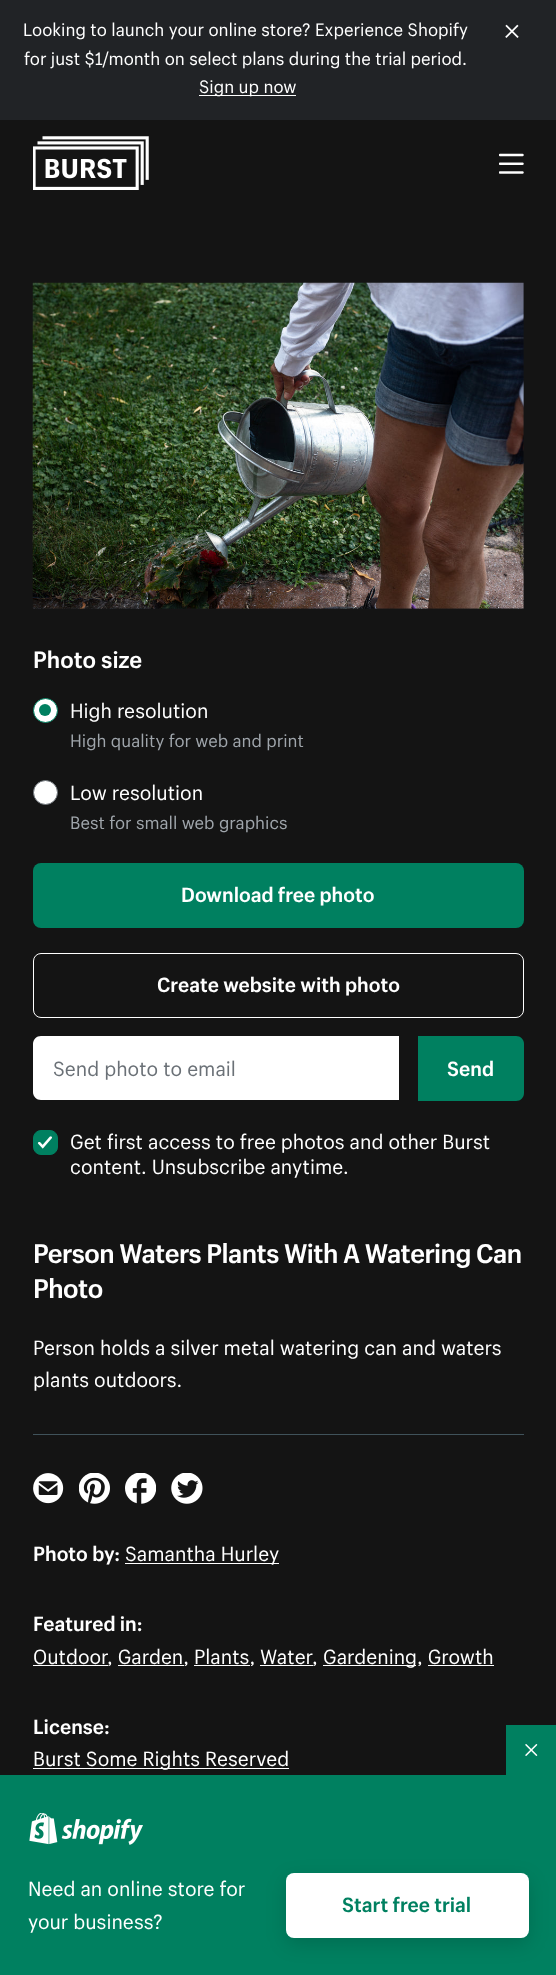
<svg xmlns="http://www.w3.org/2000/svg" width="556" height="1975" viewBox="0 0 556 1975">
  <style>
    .t1 { font: 17.5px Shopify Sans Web; fill: #fff; }
    .t2 { font: bold 23px Shopify Sans Web; fill: #fff; }
    .t3 { font: 20px Shopify Sans Web; fill: #fff; }
    .t4 { font: 17.4px Shopify Sans Web; fill: #9fa5ab; }
    .t5 { font: bold 20px Shopify Sans Web; fill: #fff; }
    .t6 { font: 20px Shopify Sans Web; fill: #6b7177; }
    .t7 { font: bold 26.4px Shopify Sans Web; letter-spacing: -0.55px; fill: #fff; }
    .t8 { font: bold 20px Shopify Sans Web; fill: #008060; }
  </style>
  <rect width="100%" height="100%" fill="#141414"/>
  <rect x="0" y="0" width="556" height="120" fill="#212326"/>
  <text x="23" y="36" class="t1">Looking to launch your online store? Experience Shopify</text>
  <text x="24" y="65" class="t1">for just $1/month on select plans during the trial period.</text>
  <rect x="199" y="95" width="97" height="1" fill="#fff"/>
  <text x="199" y="93" class="t1">Sign up now</text>
  <image x="505" y="24" width="14" height="14" href="images/1.png"/>
  <image x="33" y="136" width="116" height="54" href="images/2.png"/>
  <image x="499" y="153" width="25" height="21" href="images/3.png"/>
  <rect x="33" y="283" width="491" height="326" fill="#16191b"/>
  <image x="32" y="282" width="492" height="327" href="images/4.png"/>
  <text x="33" y="668" class="t2">Photo size</text>
  <circle cx="45.5" cy="710.5" r="12" fill="#fff" stroke="#008060"/>
  <text x="70" y="718" class="t3">High resolution</text>
  <circle cx="45" cy="710" r="6" fill="#008060"/>
  <text x="70" y="747" class="t4">High quality for web and print</text>
  <circle cx="45.5" cy="792.5" r="12" fill="#fff" stroke="#6b7177"/>
  <text x="70" y="800" class="t3">Low resolution</text>
  <text x="70" y="829" class="t4">Best for small web graphics</text>
  <rect x="33" y="863" width="491" height="65" rx="8" fill="#008060"/>
  <text x="181" y="902" class="t5">Download free photo</text>
  <rect x="33.5" y="953.5" width="490" height="64" rx="7.5" fill="none" stroke="#fff"/>
  <text x="157" y="992" class="t5">Create website with photo</text>
  <path d="M41 1036H399V1100H41C36.5 1100 33 1096.5 33 1092V1044C33 1039.5 36.5 1036 41 1036Z" fill="#fff"/>
  <text x="53" y="1076" class="t6">Send photo to email</text>
  <path d="M418 1036H516C520.5 1036 524 1039.5 524 1044V1093C524 1097.5 520.5 1101 516 1101H418Z" fill="#008060"/>
  <text x="447" y="1076" class="t5">Send</text>
  <rect x="33.5" y="1130.5" width="24" height="24" rx="7.5" fill="#008060" stroke="#008060"/>
  <text x="70" y="1149" class="t3">Get first access to free photos and other Burst</text>
  <image x="37" y="1136" width="15" height="13" href="images/5.png"/>
  <text x="70" y="1174" class="t3">content. Unsubscribe anytime.</text>
  <rect x="33" y="1434" width="491" height="1" fill="#40525a"/>
  <text x="33" y="1263" class="t7">Person Waters Plants With A Watering Can</text>
  <text x="33" y="1298" class="t7">Photo</text>
  <text x="33" y="1355" class="t3">Person holds a silver metal watering can and waters</text>
  <text x="33" y="1387" class="t3">plants outdoors.</text>
  <image x="33" y="1473" width="31" height="31" href="images/6.png"/>
  <image x="79" y="1473" width="31" height="31" href="images/7.png"/>
  <image x="125" y="1473" width="31" height="31" href="images/8.png"/>
  <image x="171" y="1473" width="32" height="31" href="images/9.png"/>
  <text x="33" y="1561" class="t5">Photo by:</text>
  <rect x="125" y="1563" width="154" height="1" fill="#fff"/>
  <text x="125" y="1561" class="t3">Samantha Hurley</text>
  <text x="33" y="1631" class="t5">Featured in:</text>
  <text x="33" y="1664" class="t3">Outdoor</text>
  <rect x="33" y="1665" width="75" height="1" fill="#fff"/>
  <text x="107" y="1664" class="t3">, Garden, Plants, Water</text>
  <text x="312" y="1664" class="t3">,</text>
  <rect x="323" y="1665" width="93" height="1" fill="#fff"/>
  <text x="323" y="1664" class="t3">Gardening, Growth</text>
  <rect x="118" y="1665" width="66" height="1" fill="#fff"/>
  <rect x="194" y="1665" width="56" height="1" fill="#fff"/>
  <rect x="260" y="1665" width="53" height="1" fill="#fff"/>
  <rect x="428" y="1665" width="66" height="1" fill="#fff"/>
  <text x="33" y="1734" class="t5">License:</text>
  <rect x="33" y="1768" width="256" height="1" fill="#fff"/>
  <text x="33" y="1766" class="t3">Burst Some Rights Reserved</text>
  <rect x="506" y="1725" width="50" height="50" fill="#008060"/>
  <image x="525" y="1744" width="13" height="12" href="images/10.png"/>
  <rect x="0" y="1775" width="556" height="200" fill="#008060"/>
  <image x="29" y="1813" width="114" height="32" href="images/11.png"/>
  <text x="28" y="1896" class="t3">Need an online store for</text>
  <text x="28" y="1929" class="t3">your business?</text>
  <rect x="286" y="1879" width="243" height="65" rx="8" fill="#00000026" filter="blur(9.5px)"/>
  <rect x="286" y="1873" width="243" height="65" rx="8" fill="#fff"/>
  <text x="342" y="1912" class="t8">Start free trial</text>
</svg>
